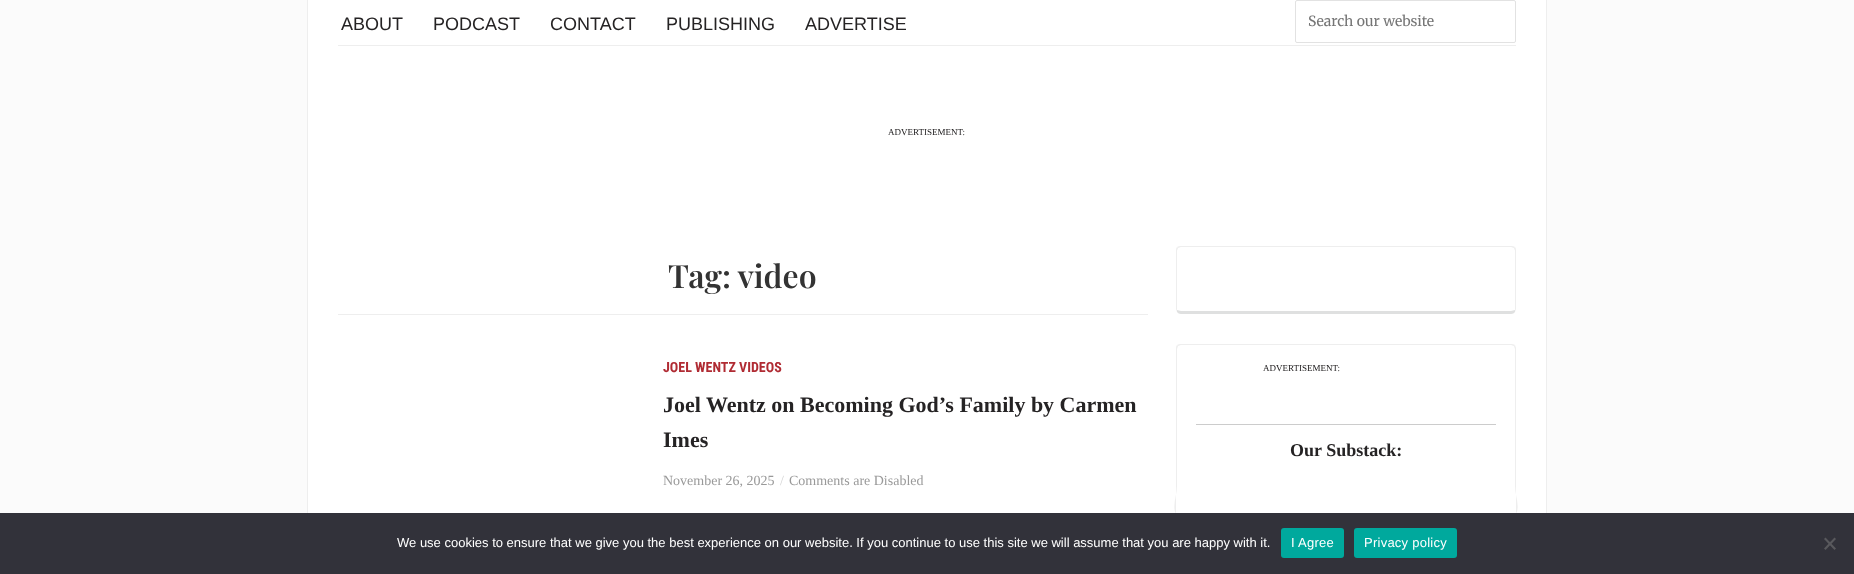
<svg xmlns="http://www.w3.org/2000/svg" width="1854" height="574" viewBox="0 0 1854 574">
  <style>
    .t1 { font: 18px Liberation Sans; fill: #252324; }
    .t2 { font: 14px Merriweather; fill: #757575; }
    .t3 { font: 9px Liberation Serif; fill: #252324; }
    .t4 { font: 600 32px Playfair Display; fill: #333; }
    .t5 { font: bold 14px Roboto Condensed; fill: #b02b33; }
    .t6 { font: bold 22px Liberation Serif; fill: #252324; }
    .t7 { font: 14px Liberation Serif; fill: #999; }
    .t8 { font: 14px Liberation Serif; fill: #d5d5d5; }
    .t9 { font: bold 18px Liberation Serif; fill: #252324; }
    .t10 { font: 13px Liberation Sans; fill: #fff; }
    .t11 { font: 13px Liberation Sans; letter-spacing: 0.25px; fill: #fff; }
  </style>
  <rect width="100%" height="100%" fill="#fbfbfb"/>
  <rect x="308" y="0" width="1238" height="513" fill="#fff"/>
  <rect x="1546" y="0" width="1" height="513" fill="#eee"/>
  <rect x="307" y="0" width="1" height="513" fill="#eee"/>
  <rect x="338" y="45" width="1178" height="1" fill="#eee"/>
  <text x="341" y="30" class="t1">ABOUT</text>
  <text x="433" y="30" class="t1">PODCAST</text>
  <text x="550" y="30" class="t1">CONTACT</text>
  <text x="666" y="30" class="t1">PUBLISHING</text>
  <text x="805" y="30" class="t1">ADVERTISE</text>
  <rect x="1295.5" y="0.5" width="220" height="42" rx="1.5" fill="none" stroke="#e2e2e2"/>
  <text x="1308" y="26" class="t2">Search our website</text>
  <text x="888" y="135" class="t3">ADVERTISEMENT:</text>
  <rect x="338" y="314" width="810" height="1" fill="#eee"/>
  <text x="668" y="288" class="t4">Tag: video</text>
  <text x="663" y="372" class="t5">JOEL WENTZ VIDEOS</text>
  <text x="663" y="412" class="t6">Joel Wentz on Becoming God’s Family by Carmen</text>
  <text x="663" y="447" class="t6">Imes</text>
  <text x="663" y="485" class="t7">November 26, 2025</text>
  <text x="780" y="485" class="t8">/</text>
  <text x="789" y="485" class="t7">Comments are Disabled</text>
  <path d="M1181 246C1180 246 1178 246 1177 247L1178 248L1181 247H1511L1514 248L1515 247C1514 246 1512 246 1511 246Z" fill="#eee"/>
  <path d="M1516 309V251C1516 250 1516 248 1515 247L1514 248C1514 249 1515 250 1515 251V309V310V312Z" fill="#eee"/>
  <path d="M1181 314H1511C1513 314 1514 313 1515 312V310L1511 311H1181L1177 310V312C1178 313 1179 314 1181 314Z" fill="#dfe0e0"/>
  <path d="M1176 251V309L1177 312V310V309V251C1177 250 1178 249 1178 248L1177 247C1176 248 1176 250 1176 251Z" fill="#eee"/>
  <path d="M1181 344C1180 344 1178 344 1177 345L1178 346L1181 345H1511L1514 346L1515 345C1514 344 1512 344 1511 344Z" fill="#eee"/>
  <path d="M1516 514V348L1515 345L1514 346L1515 349V486C1515 496 1521 508 1515 515V517Z" fill="#eee"/>
  <path d="M1176 349V514L1177 517V515C1171 508 1177 496 1177 486V349L1178 346L1177 345C1176 346 1176 348 1176 349Z" fill="#eee"/>
  <text x="1263" y="371" class="t3">ADVERTISEMENT:</text>
  <rect x="1196" y="424" width="300" height="1" fill="#ccc"/>
  <text x="1290" y="456" class="t9">Our Substack:</text>
  <rect x="0" y="513" width="1854" height="61" fill="#32323a"/>
  <text x="397" y="547" class="t10">We use cookies to ensure that we give you the best experience on our website. If you continue to use this site we will assume that you are happy with it.</text>
  <rect x="1281" y="528" width="63" height="30" rx="3" fill="#00a99d"/>
  <text x="1291" y="547" class="t11">I Agree</text>
  <rect x="1354" y="528" width="103" height="30" rx="3" fill="#00a99d"/>
  <text x="1364" y="547" class="t11">Privacy policy</text>
  <path d="M1834.5 537.5L1836 539L1825.5 550L1824 548.5Z" fill="#59595d"/>
  <path d="M1824 539L1825.5 537.5L1836 548.5L1834.5 550Z" fill="#59595d"/>
</svg>
